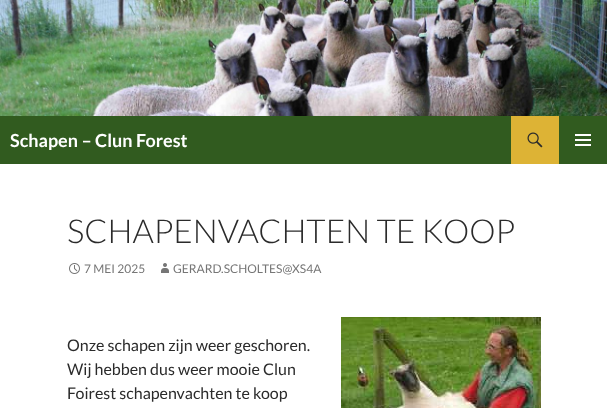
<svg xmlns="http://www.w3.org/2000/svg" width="607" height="408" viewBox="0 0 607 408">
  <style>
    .t1 { font: bold 18px Lato; fill: #fff; }
    .t2 { font: 300 33px Lato; fill: #2b2b2b; }
    .t3 { font: 12px Lato; fill: #767676; }
    .t4 { font: 16px Lato; fill: #2b2b2b; }
  </style>
  <rect width="100%" height="100%" fill="#fff"/>
  <image x="0" y="0" width="607" height="116" href="images/1.png"/>
  <rect x="0" y="116" width="607" height="48" fill="#315b1f"/>
  <text x="10" y="147" class="t1">Schapen – Clun Forest</text>
  <rect x="511" y="116" width="48" height="48" fill="#ddb335"/>
  <image x="527" y="132" width="16" height="16" href="images/2.png"/>
  <image x="575" y="134" width="16" height="12" href="images/3.png"/>
  <text x="67" y="243" class="t2">SCHAPENVACHTEN TE KOOP</text>
  <image x="69" y="263" width="11" height="11" href="images/4.png"/>
  <text x="84" y="273" class="t3">7 MEI 2025</text>
  <image x="161" y="263" width="8" height="10" href="images/5.png"/>
  <text x="173" y="273" class="t3">GERARD.SCHOLTES@XS4A</text>
  <text x="67" y="351" class="t4">Onze schapen zijn weer geschoren.</text>
  <text x="67" y="375" class="t4">Wij hebben dus weer mooie Clun</text>
  <text x="67" y="399" class="t4">Foirest schapenvachten te koop</text>
  <image x="341" y="317" width="200" height="91" href="images/6.png"/>
</svg>
